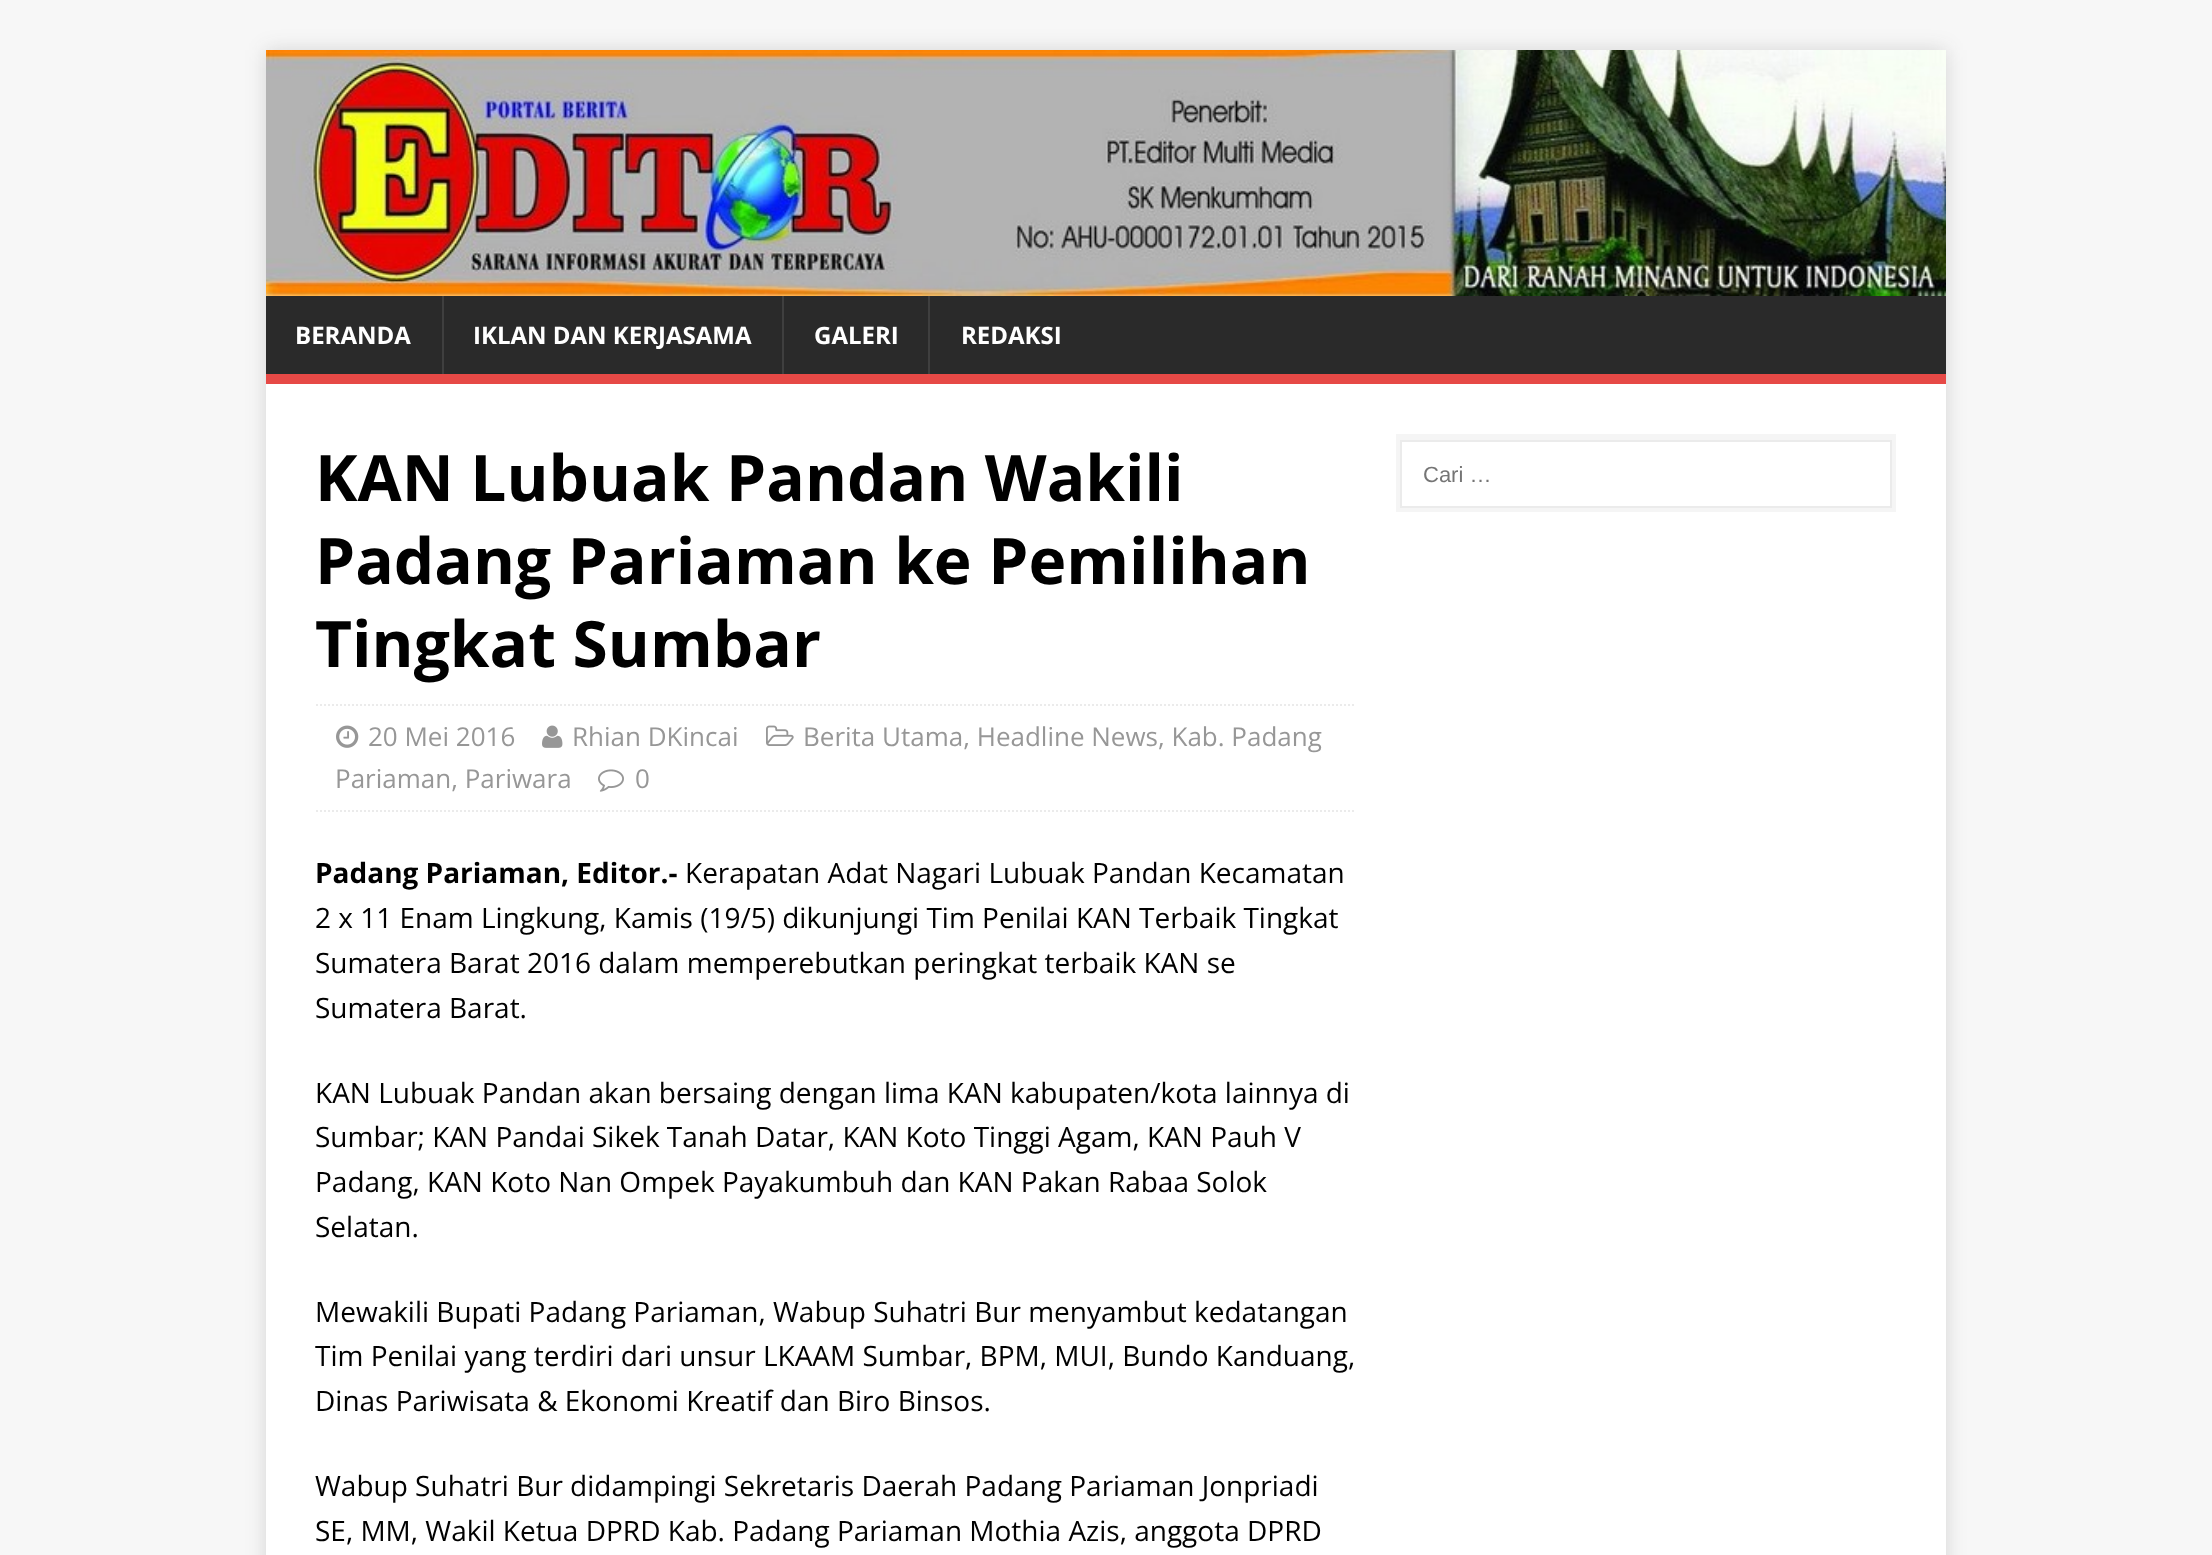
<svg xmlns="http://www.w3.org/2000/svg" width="2212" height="1555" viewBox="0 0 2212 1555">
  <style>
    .t1 { font: bold 24px Open Sans; fill: #fff; }
    .t2 { font: bold 64px Open Sans; fill: #000; }
    .t3 { font: 26px Open Sans; fill: #979797; }
    .t4 { font: bold 28px Open Sans; fill: #000; }
    .t5 { font: 28px Open Sans; fill: #000; }
    .t6 { font: 22px Liberation Sans; fill: #757575; }
  </style>
  <rect width="100%" height="100%" fill="#f7f7f7"/>
  <rect x="266" y="50" width="1680" height="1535" fill="#3232322b" filter="blur(10px)"/>
  <image x="266" y="50" width="1680" height="246" href="images/1.png"/>
  <rect x="266" y="296" width="1680" height="78" fill="#2a2a2a"/>
  <rect x="266" y="374" width="1680" height="10" fill="#e64946"/>
  <text x="295" y="344" class="t1">BERANDA</text>
  <rect x="442" y="296" width="2" height="78" fill="#3f3f3f"/>
  <text x="473" y="344" class="t1">IKLAN DAN KERJASAMA</text>
  <rect x="782" y="296" width="2" height="78" fill="#3f3f3f"/>
  <text x="814" y="344" class="t1">GALERI</text>
  <rect x="928" y="296" width="2" height="78" fill="#3f3f3f"/>
  <text x="961" y="344" class="t1">REDAKSI</text>
  <rect x="266" y="384" width="1680" height="1171" fill="#fff"/>
  <text x="315" y="501" class="t2">KAN Lubuak Pandan Wakili</text>
  <text x="315" y="584" class="t2">Padang Pariaman ke Pemilihan</text>
  <text x="315" y="667" class="t2">Tingkat Sumbar</text>
  <path d="M316 705H1356" fill="none" stroke="#ebebeb" stroke-width="2" stroke-dasharray="2 2"/>
  <path d="M316 811H1356" fill="none" stroke="#ebebeb" stroke-width="2" stroke-dasharray="2 2"/>
  <image x="766" y="725" width="28" height="21" href="images/2.png"/>
  <text x="803" y="746" class="t3">Berita Utama, Headline News, Kab. Padang</text>
  <text x="335" y="788" class="t3">Pariaman, Pariwara</text>
  <image x="336" y="725" width="23" height="23" href="images/3.png"/>
  <text x="368" y="746" class="t3">20 Mei 2016</text>
  <image x="542" y="725" width="21" height="23" href="images/4.png"/>
  <text x="572" y="746" class="t3">Rhian DKincai</text>
  <image x="598" y="769" width="26" height="23" href="images/5.png"/>
  <text x="635" y="788" class="t3">0</text>
  <text x="315" y="883" class="t4">Padang Pariaman, Editor.-</text>
  <text x="685" y="883" class="t5">Kerapatan Adat Nagari Lubuak Pandan Kecamatan</text>
  <text x="315" y="928" class="t5">2 x 11 Enam Lingkung, Kamis (19/5) dikunjungi Tim Penilai KAN Terbaik Tingkat</text>
  <text x="315" y="973" class="t5">Sumatera Barat 2016 dalam memperebutkan peringkat terbaik KAN se</text>
  <text x="315" y="1018" class="t5">Sumatera Barat.</text>
  <text x="315" y="1103" class="t5">KAN Lubuak Pandan akan bersaing dengan lima KAN kabupaten/kota lainnya di</text>
  <text x="315" y="1147" class="t5">Sumbar; KAN Pandai Sikek Tanah Datar, KAN Koto Tinggi Agam, KAN Pauh V</text>
  <text x="315" y="1192" class="t5">Padang, KAN Koto Nan Ompek Payakumbuh dan KAN Pakan Rabaa Solok</text>
  <text x="315" y="1237" class="t5">Selatan.</text>
  <text x="315" y="1322" class="t5">Mewakili Bupati Padang Pariaman, Wabup Suhatri Bur menyambut kedatangan</text>
  <text x="315" y="1366" class="t5">Tim Penilai yang terdiri dari unsur LKAAM Sumbar, BPM, MUI, Bundo Kanduang,</text>
  <text x="315" y="1411" class="t5">Dinas Pariwisata &amp; Ekonomi Kreatif dan Biro Binsos.</text>
  <text x="315" y="1496" class="t5">Wabup Suhatri Bur didampingi Sekretaris Daerah Padang Pariaman Jonpriadi</text>
  <text x="315" y="1541" class="t5">SE, MM, Wakil Ketua DPRD Kab. Padang Pariaman Mothia Azis, anggota DPRD</text>
  <rect x="1396" y="434" width="500" height="78" fill="#f5f5f5"/>
  <rect x="1401" y="441" width="490" height="66" fill="#fff" stroke="#ebebeb" stroke-width="2"/>
  <text x="1423" y="482" class="t6">Cari …</text>
</svg>
